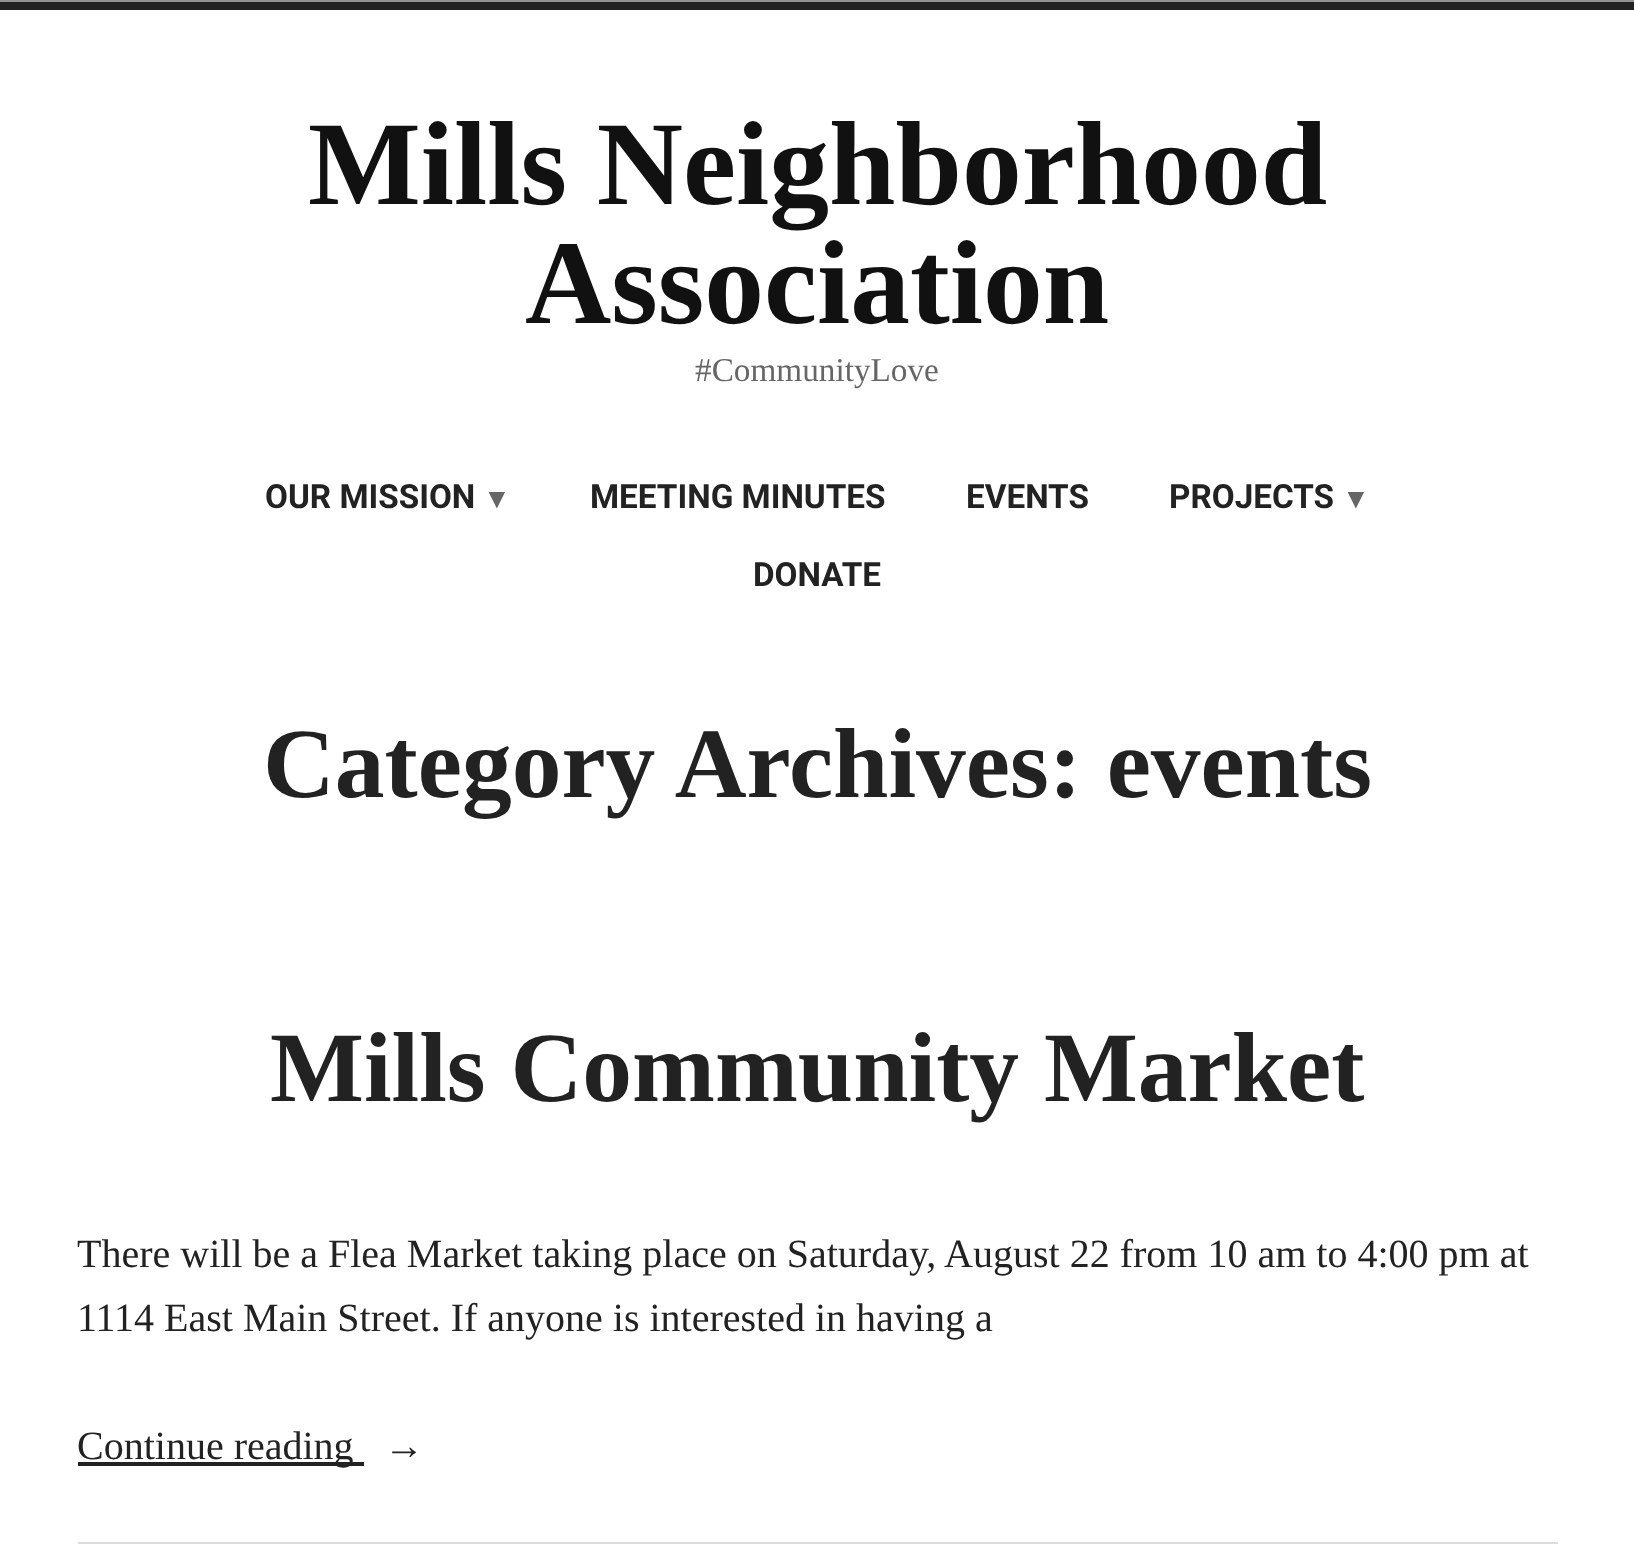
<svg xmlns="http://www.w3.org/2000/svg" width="1634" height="1552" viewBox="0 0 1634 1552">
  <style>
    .t1 { font: bold 119.5px Liberation Serif; fill: #111; }
    .t2 { font: 33.25px Liberation Serif; fill: #666; }
    .t3 { font: bold 33.25px Roboto; fill: #222; }
    .t4 { font: bold 28px Liberation Sans; fill: #666; }
    .t5 { font: bold 99.5px Liberation Serif; fill: #222; }
    .t6 { font: 40px Liberation Serif; fill: #222; }
  </style>
  <rect width="100%" height="100%" fill="#fff"/>
  <rect x="0" y="2" width="1634" height="8" fill="#222"/>
  <rect x="0" y="0" width="1634" height="2" fill="#919191"/>
  <text x="308" y="204" class="t1">Mills Neighborhood</text>
  <text x="525" y="323" class="t1">Association</text>
  <text x="695" y="381" class="t2">#CommunityLove</text>
  <text x="265" y="508" class="t3">OUR MISSION</text>
  <text x="483" y="508" class="t4">▼</text>
  <text x="590" y="508" class="t3">MEETING MINUTES</text>
  <text x="966" y="508" class="t3">EVENTS</text>
  <text x="1169" y="508" class="t3">PROJECTS</text>
  <text x="1342" y="508" class="t4">▼</text>
  <text x="753" y="586" class="t3">DONATE</text>
  <text x="263" y="797" class="t5">Category Archives: events</text>
  <text x="270" y="1101" class="t5">Mills Community Market</text>
  <text x="77" y="1267" class="t6">There will be a Flea Market taking place on Saturday, August 22 from 10 am to 4:00 pm at</text>
  <text x="77" y="1331" class="t6">1114 East Main Street. If anyone is interested in having a</text>
  <rect x="78" y="1462" width="286" height="4" fill="#222"/>
  <text x="77" y="1459" class="t6">Continue reading</text>
  <text x="384" y="1459" class="t6">→</text>
  <rect x="78" y="1542" width="1480" height="2" fill="#ddd"/>
</svg>
